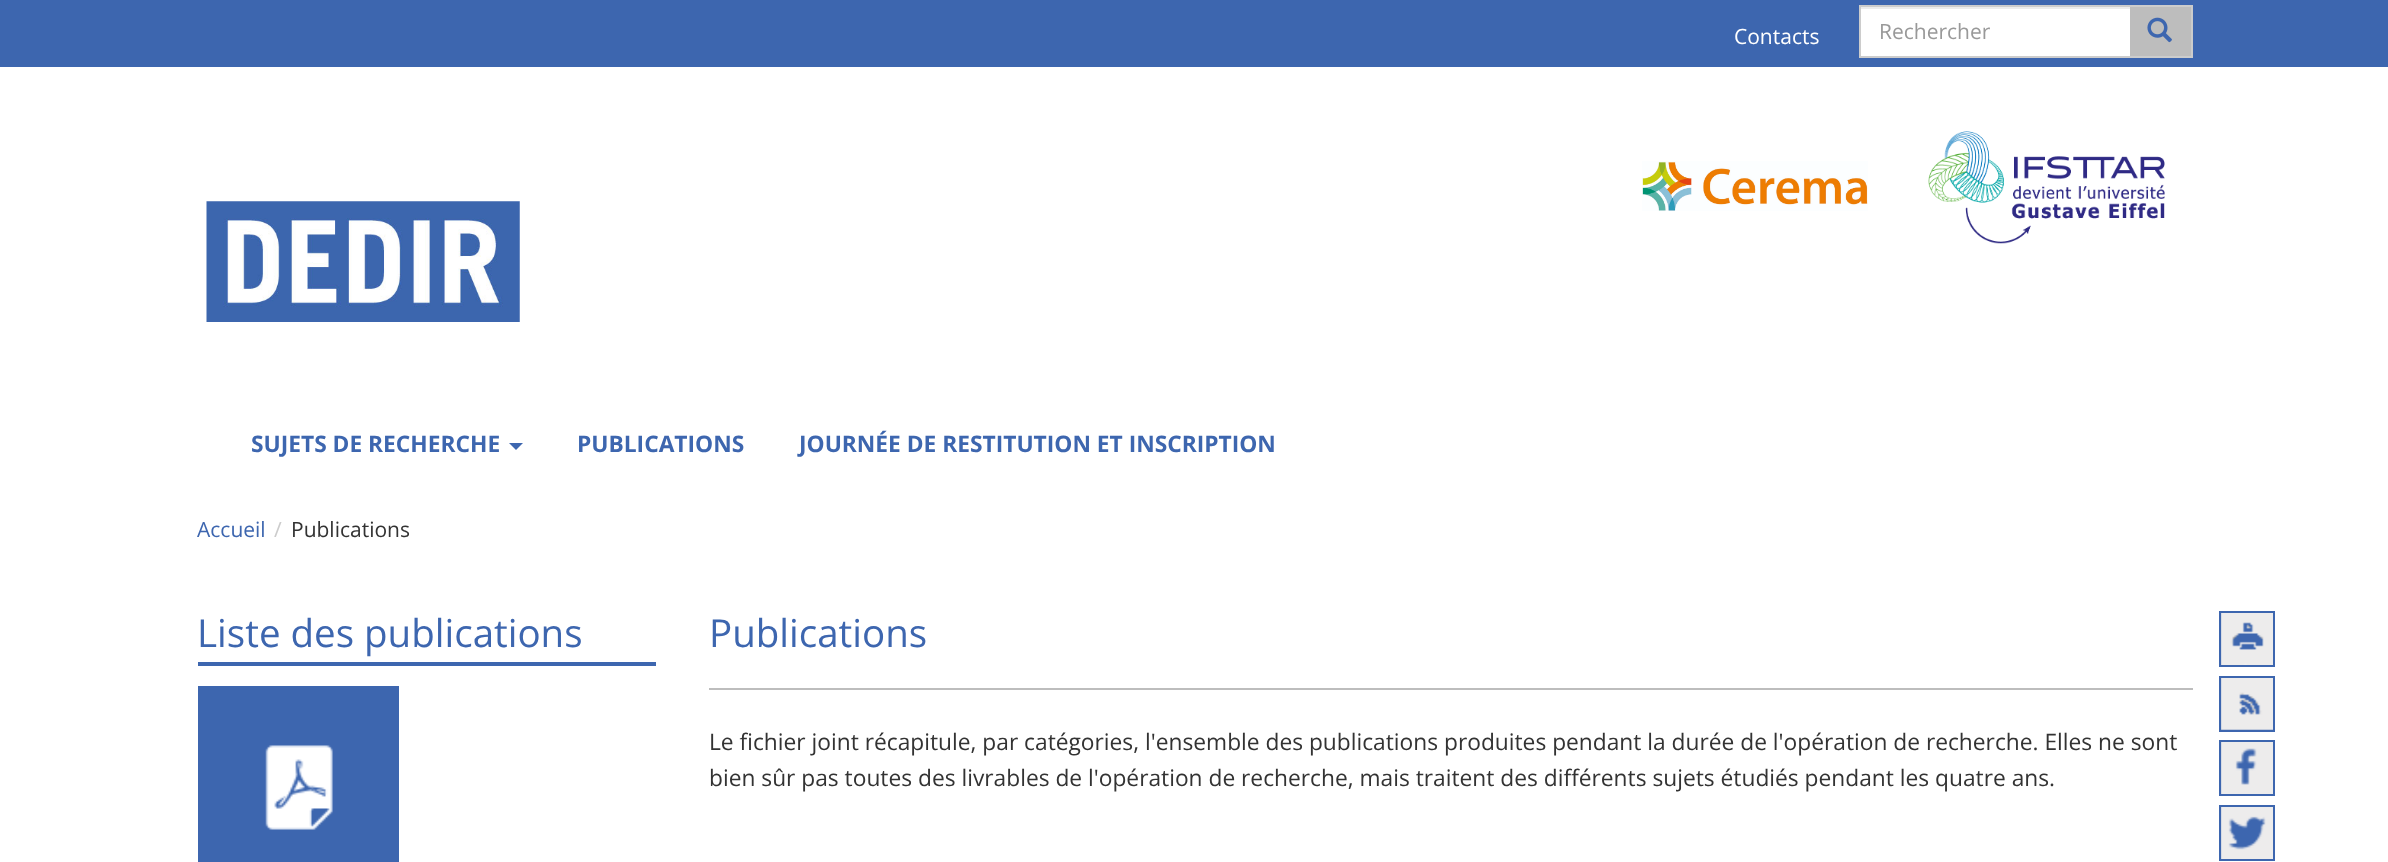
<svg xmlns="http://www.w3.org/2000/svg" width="2388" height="862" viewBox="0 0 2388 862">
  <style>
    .t1 { font: 21px Open Sans; fill: #fff; }
    .t2 { font: 21px Open Sans; fill: #999; }
    .t3 { font: bold 22.75px Open Sans; fill: #3d66af; }
    .t4 { font: 21px Open Sans; fill: #3d66af; }
    .t5 { font: 21px Open Sans; fill: #ccc; }
    .t6 { font: 21px Open Sans; fill: #333; }
    .t7 { font: 38.5px Open Sans; fill: #3d66af; }
    .t8 { font: 22.75px Open Sans; fill: #333; }
  </style>
  <rect width="100%" height="100%" fill="#fff"/>
  <rect x="0" y="0" width="2388" height="67" fill="#3d66af"/>
  <text x="1734" y="44" class="t1">Contacts</text>
  <rect x="2130" y="7" width="61" height="49" fill="#bdbdbd"/>
  <rect x="1859" y="5" width="334" height="2" fill="#ccc"/>
  <rect x="2191" y="5" width="2" height="53" fill="#ccc"/>
  <rect x="1859" y="56" width="334" height="2" fill="#ccc"/>
  <image x="2147" y="17" width="25" height="26" href="images/1.png"/>
  <rect x="1861" y="9" width="269" height="47" fill="#fff"/>
  <rect x="1860" y="7" width="270" height="2" fill="#ececec"/>
  <rect x="1859" y="5" width="2" height="53" fill="#ccc"/>
  <text x="1879" y="39" class="t2">Rechercher</text>
  <image x="1642" y="161" width="226" height="50" href="images/2.png"/>
  <image x="1928" y="131" width="237" height="113" href="images/3.png"/>
  <image x="206" y="201" width="314" height="121" href="images/4.png"/>
  <text x="251" y="452" class="t3">SUJETS DE RECHERCHE</text>
  <path d="M509 443H523L516 450Z" fill="#3d66af"/>
  <text x="577" y="452" class="t3">PUBLICATIONS</text>
  <text x="799" y="452" class="t3">JOURNÉE DE RESTITUTION ET INSCRIPTION</text>
  <text x="197" y="537" class="t4">Accueil</text>
  <text x="274" y="537" class="t5">/</text>
  <text x="291" y="537" class="t6">Publications</text>
  <rect x="198" y="662" width="458" height="4" fill="#3d66af"/>
  <text x="197" y="647" class="t7">Liste des publications</text>
  <rect x="198" y="686" width="201" height="176" fill="#3d66af"/>
  <image x="265" y="745" width="68" height="85" href="images/5.png"/>
  <rect x="709" y="688" width="1484" height="2" fill="#bdbdbd"/>
  <text x="709" y="647" class="t7">Publications</text>
  <text x="709" y="750" class="t8">Le fichier joint récapitule, par catégories, l'ensemble des publications produites pendant la durée de l'opération de recherche. Elles ne sont</text>
  <text x="709" y="786" class="t8">bien sûr pas toutes des livrables de l'opération de recherche, mais traitent des différents sujets étudiés pendant les quatre ans.</text>
  <rect x="2221" y="613" width="43" height="52" fill="#3d66af"/>
  <image x="2221" y="613" width="52" height="52" href="images/6.png"/>
  <rect x="2220" y="612" width="54" height="54" fill="none" stroke="#3d66af" stroke-width="2"/>
  <rect x="2221" y="678" width="52" height="52" fill="#3d66af"/>
  <image x="2221" y="678" width="52" height="52" href="images/7.png"/>
  <rect x="2220" y="677" width="54" height="54" fill="none" stroke="#3d66af" stroke-width="2"/>
  <rect x="2221" y="742" width="36" height="52" fill="#3d66af"/>
  <image x="2221" y="742" width="52" height="52" href="images/8.png"/>
  <rect x="2220" y="741" width="54" height="54" fill="none" stroke="#3d66af" stroke-width="2"/>
  <rect x="2221" y="807" width="45" height="52" fill="#3d66af"/>
  <image x="2221" y="807" width="52" height="52" href="images/9.png"/>
  <rect x="2220" y="806" width="54" height="54" fill="none" stroke="#3d66af" stroke-width="2"/>
</svg>
